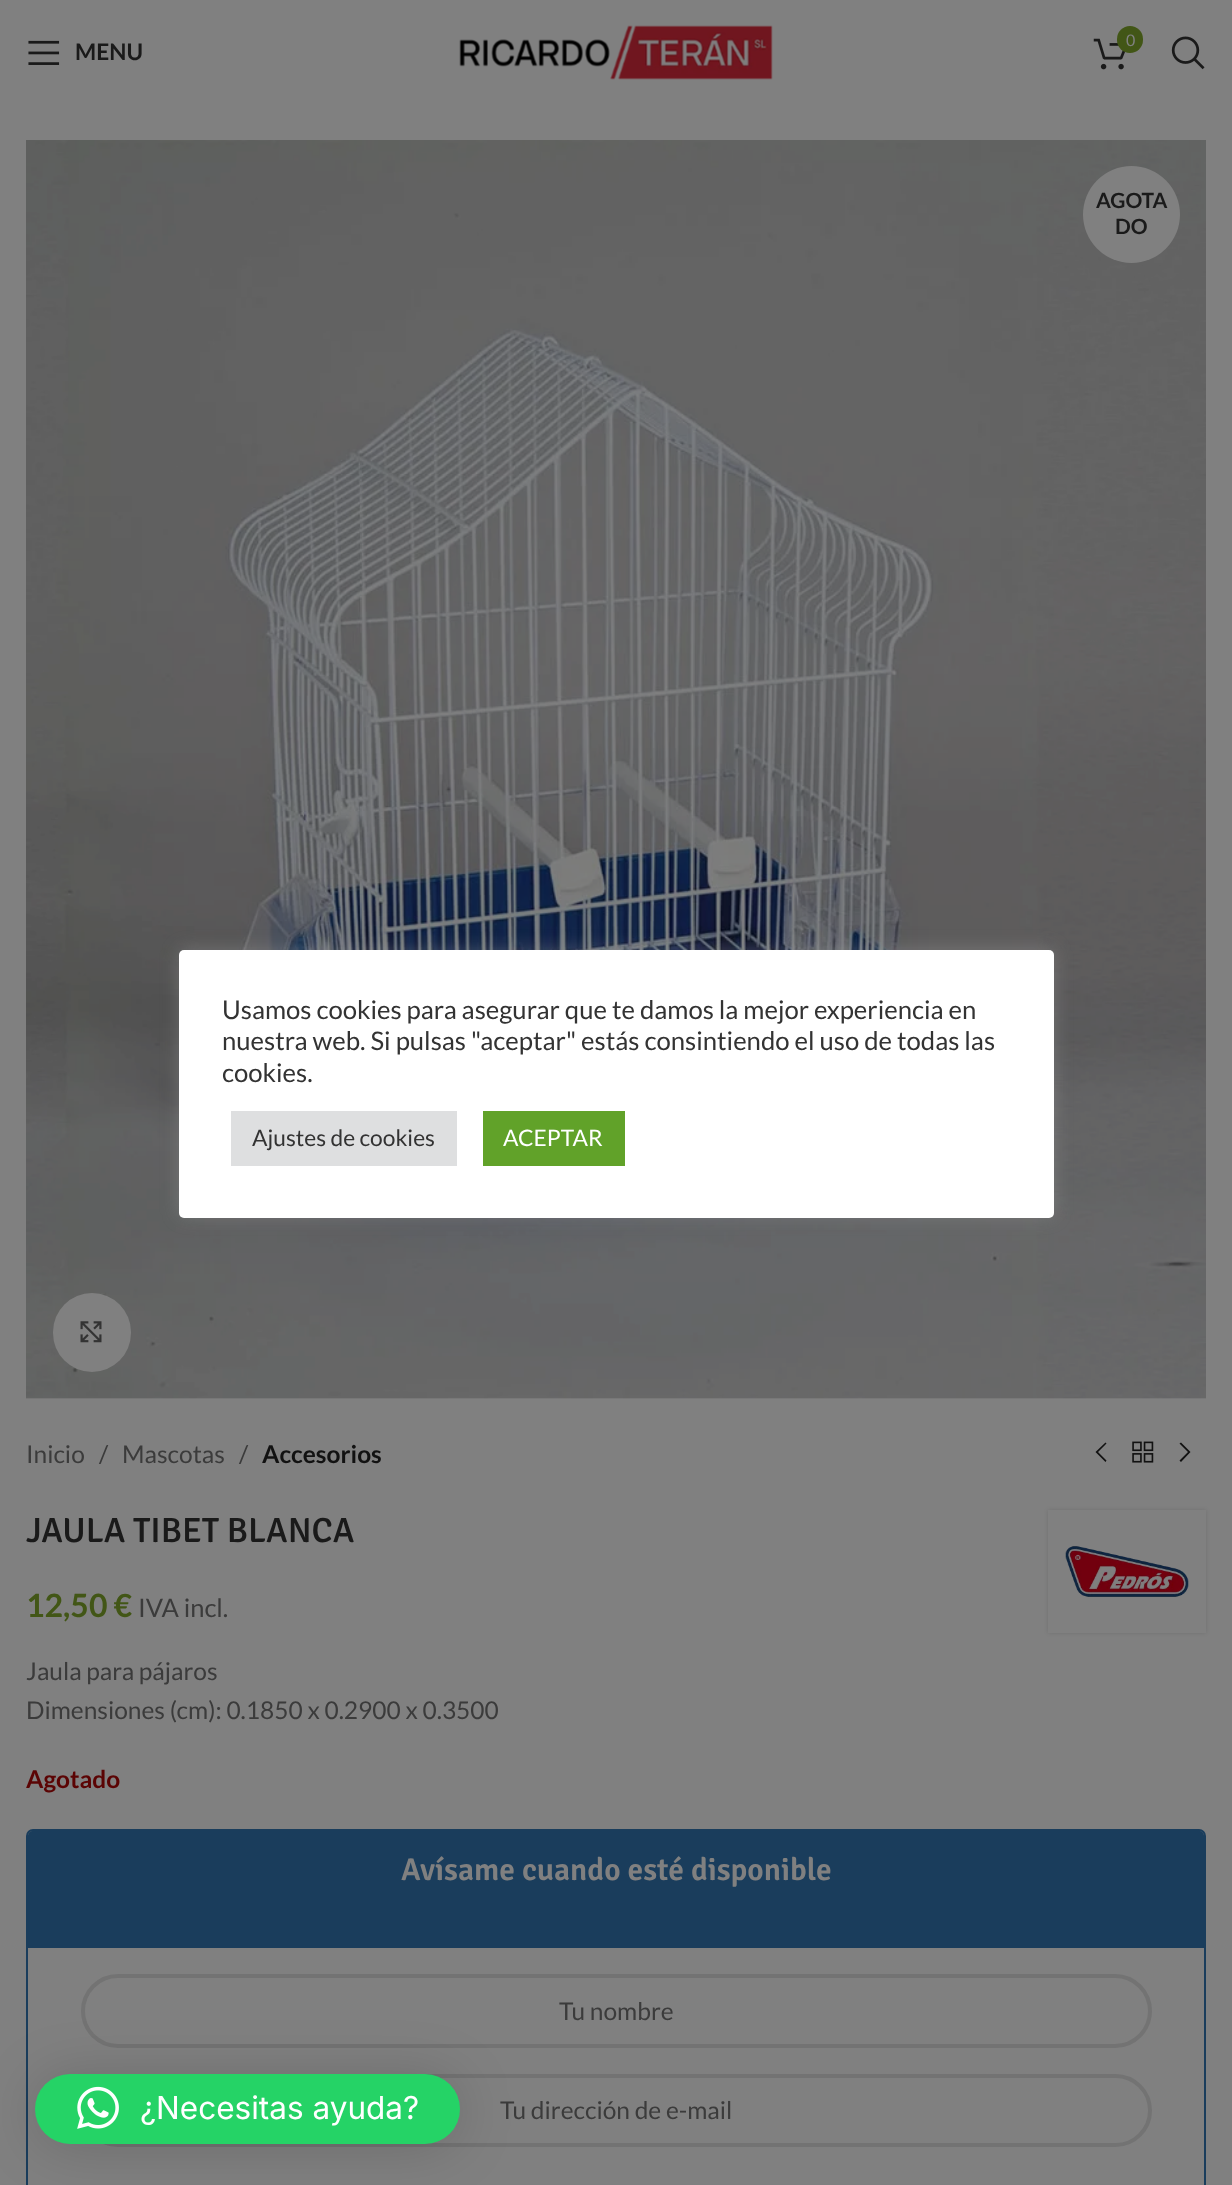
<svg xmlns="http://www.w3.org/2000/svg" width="1232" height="2185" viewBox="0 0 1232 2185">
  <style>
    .t1 { font: 16px Lato; fill: #808080; }
    .t2 { font: bold 22.75px Lato; fill: #1a1a1a; }
    .t3 { font: bold 21px Lato; fill: #1a1a1a; }
    .t4 { font: 24.5px Lato; fill: #3b3b3b; }
    .t5 { font: bold 24.5px Lato; fill: #121212; }
    .t6 { font: 500 35px Signika; fill: #1a1a1a; }
    .t7 { font: bold 32px Lato; fill: #425616; }
    .t8 { font: 25.5px Lato; fill: #3b3b3b; }
    .t9 { font: bold 24.5px Lato; fill: #5b0404; }
    .t10 { font: 600 31.5px Signika; fill: #808080; }
    .t11 { font: 25.7px Lato; fill: #333; }
    .t12 { font: 22.75px Lato; fill: #333; }
    .t13 { font: 22.75px Lato; fill: #fff; }
    .t14 { font: 31.5px Inter; fill: #fff; }
  </style>
  <rect width="100%" height="100%" fill="#808080"/>
  <image x="459" y="25" width="314" height="55" href="images/1.png"/>
  <image x="1093" y="38" width="32" height="32" href="images/2.png"/>
  <rect x="1117" y="26" width="26" height="27" rx="13" fill="#425616"/>
  <text x="1126" y="46" class="t1">0</text>
  <image x="1171" y="36" width="34" height="34" href="images/3.png"/>
  <image x="28" y="40" width="32" height="25" href="images/4.png"/>
  <text x="75" y="60" class="t2">MENU</text>
  <image x="26" y="140" width="1180" height="1259" href="images/5.png"/>
  <circle cx="1131.5" cy="214.5" r="48.5" fill="#808080"/>
  <text x="1096" y="208" class="t3">AGOTA</text>
  <text x="1115" y="234" class="t3">DO</text>
  <rect x="53" y="1293" width="78" height="79" rx="39" fill="#808080"/>
  <image x="80" y="1321" width="22" height="22" href="images/6.png"/>
  <text x="26" y="1463" class="t4">Inicio</text>
  <text x="99" y="1463" class="t4">/</text>
  <text x="122" y="1463" class="t4">Mascotas</text>
  <text x="239" y="1463" class="t4">/</text>
  <text x="262" y="1463" class="t5">Accesorios</text>
  <path d="M1106.5 1443.5L1105.5 1442.5L1095.5 1452L1105.5 1462L1106.5 1460.5L1098 1452Z" fill="#121212"/>
  <image x="1132" y="1441" width="22" height="22" href="images/7.png"/>
  <path d="M1179.5 1443.5L1188 1452L1179.5 1460.5L1181 1462L1190.5 1452L1181 1442.5Z" fill="#121212"/>
  <text x="26" y="1542" class="t6">JAULA TIBET BLANCA</text>
  <rect x="1048" y="1510" width="158" height="123" fill="#0000001f" filter="blur(2px)"/>
  <rect x="1048" y="1510" width="158" height="123" fill="#808080"/>
  <image x="1065" y="1546" width="124" height="51" href="images/8.png"/>
  <text x="26" y="1617" class="t7">12,50 €</text>
  <text x="138" y="1617" class="t8">IVA incl.</text>
  <text x="26" y="1680" class="t4">Jaula para pájaros</text>
  <text x="26" y="1719" class="t4">Dimensiones (cm): 0.1850 x 0.2900 x 0.3500</text>
  <text x="26" y="1788" class="t9">Agotado</text>
  <rect x="27" y="1830" width="1178" height="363" rx="6" fill="none" stroke="#1a3d5c" stroke-width="2"/>
  <path d="M33 1831H1199C1202 1831 1204 1833 1204 1836V1948H28V1836C28 1833 30 1831 33 1831Z" fill="#1a3d5c"/>
  <text x="401" y="1880" class="t10">Avísame cuando esté disponible</text>
  <rect x="83" y="1976" width="1067" height="70" rx="35" fill="none" stroke="#737373" stroke-width="4"/>
  <text x="559" y="2020" class="t4">Tu nombre</text>
  <rect x="83" y="2076" width="1067" height="69" rx="34.5" fill="none" stroke="#737373" stroke-width="4"/>
  <text x="500" y="2119" class="t4">Tu dirección de e-mail</text>
  <rect x="179" y="949" width="875" height="267" rx="5" fill="#acabab4d" filter="blur(9px)"/>
  <rect x="179" y="950" width="875" height="268" rx="5" fill="#fff"/>
  <text x="222" y="1019" class="t11">Usamos cookies para asegurar que te damos la mejor experiencia en</text>
  <text x="222" y="1050" class="t11">nuestra web. Si pulsas "aceptar" estás consintiendo el uso de todas las</text>
  <text x="222" y="1082" class="t11">cookies.</text>
  <rect x="231" y="1111" width="226" height="55" fill="#dedfe0"/>
  <text x="252" y="1146" class="t12">Ajustes de cookies</text>
  <rect x="483" y="1111" width="142" height="55" fill="#61a229"/>
  <text x="503" y="1146" class="t13">ACEPTAR</text>
  <rect x="35" y="2077" width="425" height="70" rx="35" fill="#00000029" filter="blur(28px)"/>
  <rect x="35" y="2074" width="425" height="70" rx="35" fill="#25d366"/>
  <image x="77" y="2086" width="42" height="43" href="images/9.png"/>
  <text x="140" y="2119" class="t14">¿Necesitas ayuda?</text>
</svg>
